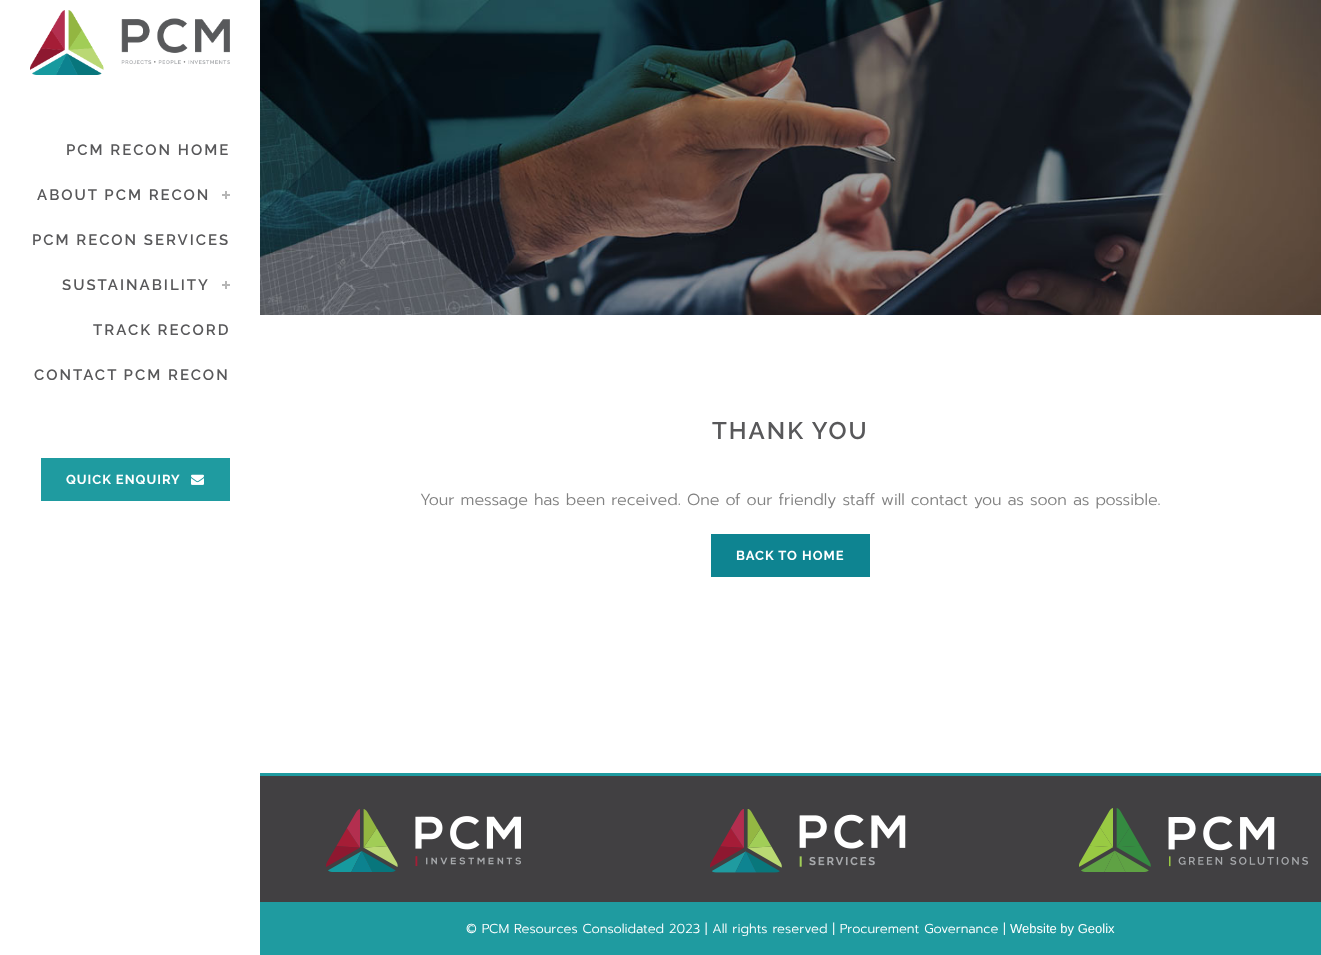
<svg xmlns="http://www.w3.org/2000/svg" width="1321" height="955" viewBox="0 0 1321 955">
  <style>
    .t1 { font: 600 15px Raleway; letter-spacing: 2px; fill: #58585a; }
    .t2 { font: bold 13px Raleway; letter-spacing: 1px; fill: #fff; }
    .t3 { font: 600 24px Raleway; letter-spacing: 2px; fill: #58585a; }
    .t4 { font: 300 16px Prompt; fill: #818181; }
    .t5 { font: 300 13px Prompt; fill: #fff; }
    .t6 { font: 13px Liberation Sans; fill: #fff; }
  </style>
  <rect width="100%" height="100%" fill="#fff"/>
  <image x="30" y="10" width="200" height="65" href="images/1.png"/>
  <text x="66" y="155" class="t1">PCM RECON HOME</text>
  <text x="37" y="200" class="t1">ABOUT PCM RECON</text>
  <image x="222" y="191" width="8" height="8" href="images/2.png"/>
  <text x="32" y="245" class="t1">PCM RECON SERVICES</text>
  <text x="62" y="290" class="t1">SUSTAINABILITY</text>
  <image x="222" y="281" width="8" height="8" href="images/2.png"/>
  <text x="93" y="335" class="t1">TRACK RECORD</text>
  <text x="34" y="380" class="t1">CONTACT PCM RECON</text>
  <rect x="41" y="458" width="189" height="43" fill="#1f9ba0"/>
  <text x="66" y="484" class="t2">QUICK ENQUIRY</text>
  <image x="191" y="474" width="13" height="11" href="images/3.png"/>
  <image x="260" y="0" width="1061" height="315" href="images/4.png"/>
  <text x="712" y="439" class="t3">THANK YOU</text>
  <text x="420" y="505" class="t4">Your message has been received. One of our friendly staff will contact you as soon as possible.</text>
  <rect x="711" y="534" width="159" height="43" fill="#0e8491"/>
  <text x="736" y="560" class="t2">BACK TO HOME</text>
  <rect x="260" y="776" width="1061" height="126" fill="#414042"/>
  <rect x="260" y="773" width="1061" height="3" fill="#1f9ba0"/>
  <image x="326" y="809" width="195" height="63" href="images/5.png"/>
  <image x="710" y="809" width="196" height="64" href="images/6.png"/>
  <image x="1079" y="808" width="229" height="64" href="images/7.png"/>
  <rect x="260" y="902" width="1061" height="53" fill="#1f9ba0"/>
  <text x="466" y="933" class="t5">© PCM Resources Consolidated 2023 | All rights reserved | Procurement Governance |</text>
  <text x="1010" y="933" class="t6">Website by Geolix</text>
</svg>
